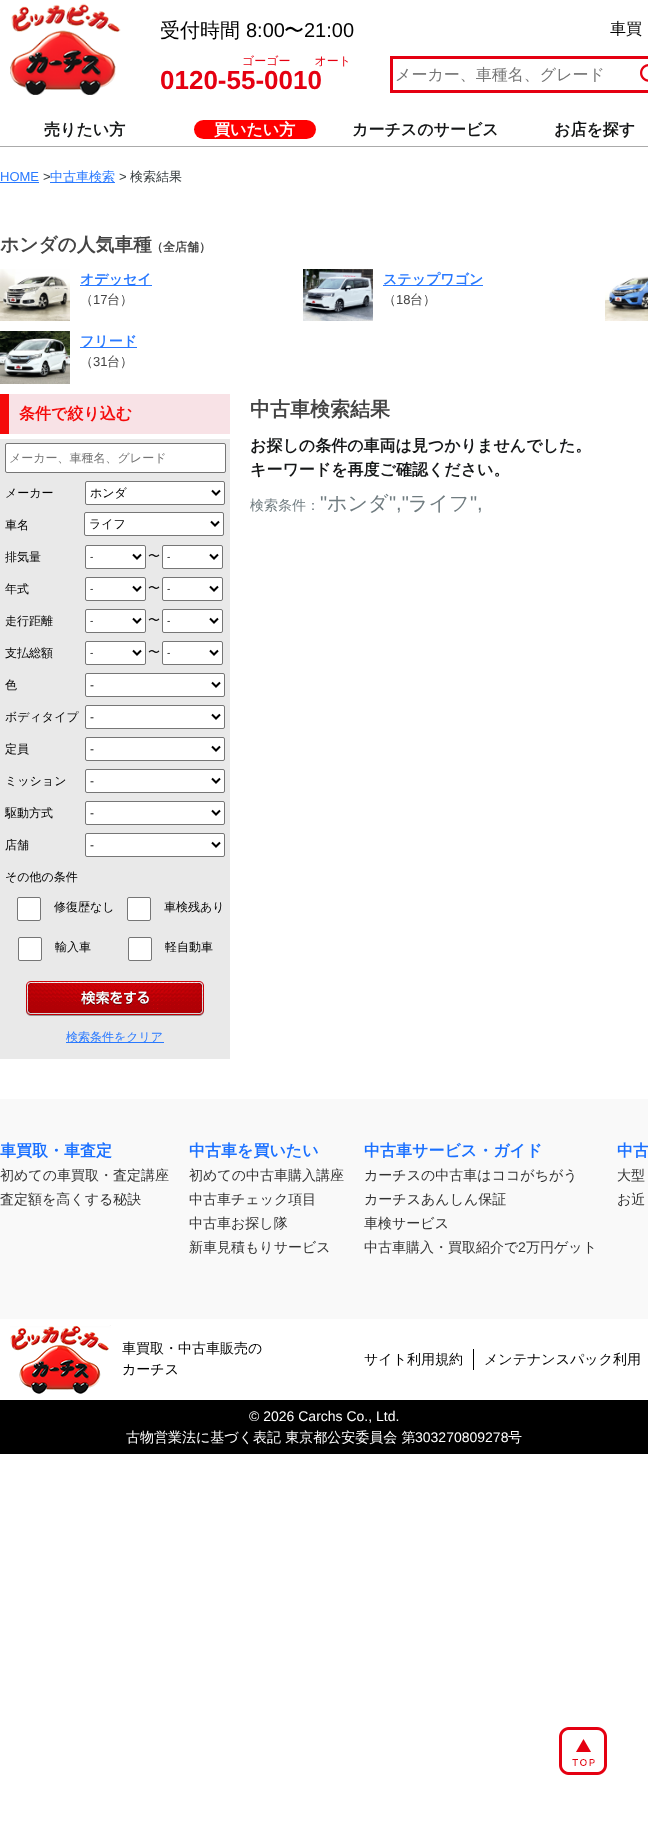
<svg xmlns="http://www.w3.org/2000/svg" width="648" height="1827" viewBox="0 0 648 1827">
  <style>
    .t1 { font: 500 20px WenQuanYi Zen Hei; fill: #000; }
    .t2 { font: 20px Liberation Sans; fill: #000; }
    .t3 { font: 500 12px WenQuanYi Zen Hei; fill: #e50011; }
    .t4 { font: bold 26px Liberation Sans; fill: #e50011; }
    .t5 { font: 500 16px WenQuanYi Zen Hei; fill: #000; }
    .t6 { font: 500 16px WenQuanYi Zen Hei; fill: #757575; }
    .t7 { font: bold 16px WenQuanYi Zen Hei; fill: #131516; }
    .t8 { font: bold 16px WenQuanYi Zen Hei; fill: #fff; }
    .t9 { font: 13px Liberation Sans; fill: #2979ff; }
    .t10 { font: 13px Liberation Sans; fill: #373d3f; }
    .t11 { font: 500 13px WenQuanYi Zen Hei; fill: #2979ff; }
    .t12 { font: 500 13px WenQuanYi Zen Hei; fill: #373d3f; }
    .t13 { font: bold 18.75px WenQuanYi Zen Hei; fill: #444; }
    .t14 { font: bold 12px WenQuanYi Zen Hei; fill: #444; }
    .t15 { font: bold 14px WenQuanYi Zen Hei; fill: #2979ff; }
    .t16 { font: 500 13px WenQuanYi Zen Hei; fill: #444; }
    .t17 { font: 13px Liberation Sans; fill: #444; }
    .t18 { font: bold 16px WenQuanYi Zen Hei; fill: #f50a0a; }
    .t19 { font: 500 12px WenQuanYi Zen Hei; fill: #757575; }
    .t20 { font: 500 12px WenQuanYi Zen Hei; fill: #000; }
    .t21 { font: 10px Liberation Sans; fill: #000; }
    .t22 { font: 12px Liberation Sans; fill: #000; }
    .t23 { font: 500 12px WenQuanYi Zen Hei; fill: #2979ff; }
    .t24 { font: bold 20px WenQuanYi Zen Hei; fill: #444; }
    .t25 { font: 500 14px WenQuanYi Zen Hei; fill: #707c80; }
    .t26 { font: 20px Liberation Sans; fill: #707c80; }
    .t27 { font: 500 20px WenQuanYi Zen Hei; fill: #707c80; }
    .t28 { font: bold 16px WenQuanYi Zen Hei; fill: #1a70ff; }
    .t29 { font: 500 14px WenQuanYi Zen Hei; fill: #333; }
    .t30 { font: 14px Liberation Sans; fill: #333; }
    .t31 { font: 500 14px WenQuanYi Zen Hei; fill: #000; }
    .t32 { font: 14px Liberation Sans; fill: #fff; }
    .t33 { font: 500 14px WenQuanYi Zen Hei; fill: #fff; }
  </style>
  <rect width="100%" height="100%" fill="#fff"/>
  <image x="10" y="3" width="111" height="92" href="images/1.png"/>
  <text x="160" y="37" class="t1">受付時間</text>
  <text x="246" y="37" class="t2">8:00</text>
  <text x="284" y="37" class="t1">〜</text>
  <text x="304" y="37" class="t2">21:00</text>
  <text x="242" y="65" class="t3">ゴーゴー　　オート</text>
  <text x="160" y="89" class="t4">0120-55-0010</text>
  <text x="610" y="34" class="t5">車買</text>
  <rect x="391.5" y="57.5" width="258" height="34" fill="none" stroke="#e50011" stroke-width="3"/>
  <text x="395" y="80" class="t6">メーカー、車種名、グレード</text>
  <image x="640" y="64" width="8" height="18" href="images/2.png"/>
  <rect x="0" y="146" width="648" height="1" fill="#ababab"/>
  <text x="44" y="135" class="t7">売りたい方</text>
  <rect x="194" y="120" width="122" height="19" rx="9.5" fill="#f00"/>
  <text x="214" y="135" class="t8">買いたい方</text>
  <text x="352" y="135" class="t7">カーチスのサービス</text>
  <text x="554" y="135" class="t7">お店を探す</text>
  <text x="0" y="181" class="t9">HOME</text>
  <rect x="0" y="182" width="39" height="1" fill="#2979ff"/>
  <text x="43" y="181" class="t10">&gt;</text>
  <rect x="50" y="182" width="65" height="1" fill="#2979ff"/>
  <text x="50" y="181" class="t11">中古車検索</text>
  <text x="119" y="181" class="t10">&gt;</text>
  <text x="130" y="181" class="t12">検索結果</text>
  <text x="0" y="251" class="t13">ホンダの人気車種</text>
  <text x="151" y="251" class="t14">（全店舗）</text>
  <image x="0" y="269" width="70" height="52" href="images/3.png"/>
  <rect x="80" y="285" width="72" height="1" fill="#2979ff"/>
  <text x="80" y="284" class="t15">オデッセイ</text>
  <text x="80" y="304" class="t16">（</text>
  <text x="93" y="304" class="t17">17</text>
  <text x="107" y="304" class="t16">台）</text>
  <image x="303" y="269" width="70" height="52" href="images/4.png"/>
  <rect x="383" y="285" width="100" height="1" fill="#2979ff"/>
  <text x="383" y="284" class="t15">ステップワゴン</text>
  <text x="383" y="304" class="t16">（</text>
  <text x="396" y="304" class="t17">18</text>
  <text x="410" y="304" class="t16">台）</text>
  <image x="605" y="276" width="43" height="45" href="images/5.png"/>
  <image x="0" y="331" width="70" height="53" href="images/6.png"/>
  <rect x="80" y="347" width="57" height="1" fill="#2979ff"/>
  <text x="80" y="346" class="t15">フリード</text>
  <text x="80" y="366" class="t16">（</text>
  <text x="93" y="366" class="t17">31</text>
  <text x="107" y="366" class="t16">台）</text>
  <rect x="9" y="394" width="221" height="40" fill="#f8e2e6"/>
  <rect x="0" y="394" width="9" height="40" fill="#f50a0a"/>
  <text x="19" y="419" class="t18">条件で絞り込む</text>
  <rect x="0" y="439" width="230" height="620" fill="#e9e9e9"/>
  <rect x="5.5" y="443.5" width="220" height="29" rx="1.5" fill="#fff" stroke="#767676"/>
  <text x="9" y="462" class="t19">メーカー、車種名、グレード</text>
  <text x="5" y="497" class="t20">メーカー</text>
  <rect x="85.5" y="481.5" width="139" height="23" rx="1.5" fill="#fff" stroke="#767676"/>
  <path d="M212 490.5L216 494.5L220 490.5" fill="none" stroke="#000" stroke-width="2"/>
  <text x="90" y="497" class="t20">ホンダ</text>
  <text x="5" y="529" class="t20">車名</text>
  <rect x="84.5" y="512.5" width="139" height="23" rx="1.5" fill="#fff" stroke="#767676"/>
  <path d="M211 521.5L215 525.5L219 521.5" fill="none" stroke="#000" stroke-width="2"/>
  <text x="89" y="528" class="t20">ライフ</text>
  <text x="5" y="561" class="t20">排気量</text>
  <rect x="85.5" y="545.5" width="60" height="23" rx="1.5" fill="#fff" stroke="#767676"/>
  <path d="M133 554.5L137 558.5L141 554.5" fill="none" stroke="#000" stroke-width="2"/>
  <text x="90" y="560" class="t21">-</text>
  <text x="148" y="560" class="t20">〜</text>
  <rect x="162.5" y="545.5" width="60" height="23" rx="1.5" fill="#fff" stroke="#767676"/>
  <path d="M210 554.5L214 558.5L218 554.5" fill="none" stroke="#000" stroke-width="2"/>
  <text x="167" y="560" class="t21">-</text>
  <text x="5" y="593" class="t20">年式</text>
  <rect x="85.5" y="577.5" width="60" height="23" rx="1.5" fill="#fff" stroke="#767676"/>
  <path d="M133 586.5L137 590.5L141 586.5" fill="none" stroke="#000" stroke-width="2"/>
  <text x="90" y="592" class="t21">-</text>
  <text x="148" y="592" class="t20">〜</text>
  <rect x="162.5" y="577.5" width="60" height="23" rx="1.5" fill="#fff" stroke="#767676"/>
  <path d="M210 586.5L214 590.5L218 586.5" fill="none" stroke="#000" stroke-width="2"/>
  <text x="167" y="592" class="t21">-</text>
  <text x="5" y="625" class="t20">走行距離</text>
  <rect x="85.5" y="609.5" width="60" height="23" rx="1.5" fill="#fff" stroke="#767676"/>
  <path d="M133 618.5L137 622.5L141 618.5" fill="none" stroke="#000" stroke-width="2"/>
  <text x="90" y="624" class="t21">-</text>
  <text x="148" y="624" class="t20">〜</text>
  <rect x="162.5" y="609.5" width="60" height="23" rx="1.5" fill="#fff" stroke="#767676"/>
  <path d="M210 618.5L214 622.5L218 618.5" fill="none" stroke="#000" stroke-width="2"/>
  <text x="167" y="624" class="t21">-</text>
  <text x="5" y="657" class="t20">支払総額</text>
  <rect x="85.5" y="641.5" width="60" height="23" rx="1.5" fill="#fff" stroke="#767676"/>
  <path d="M133 650.5L137 654.5L141 650.5" fill="none" stroke="#000" stroke-width="2"/>
  <text x="90" y="656" class="t21">-</text>
  <text x="148" y="656" class="t20">〜</text>
  <rect x="162.5" y="641.5" width="60" height="23" rx="1.5" fill="#fff" stroke="#767676"/>
  <path d="M210 650.5L214 654.5L218 650.5" fill="none" stroke="#000" stroke-width="2"/>
  <text x="167" y="656" class="t21">-</text>
  <text x="5" y="689" class="t20">色</text>
  <rect x="85.5" y="673.5" width="139" height="23" rx="1.5" fill="#fff" stroke="#767676"/>
  <path d="M212 682.5L216 686.5L220 682.5" fill="none" stroke="#000" stroke-width="2"/>
  <text x="90" y="689" class="t22">-</text>
  <text x="5" y="721" class="t20">ボディタイプ</text>
  <rect x="85.5" y="705.5" width="139" height="23" rx="1.5" fill="#fff" stroke="#767676"/>
  <path d="M212 714.5L216 718.5L220 714.5" fill="none" stroke="#000" stroke-width="2"/>
  <text x="90" y="721" class="t22">-</text>
  <text x="5" y="753" class="t20">定員</text>
  <rect x="85.5" y="737.5" width="139" height="23" rx="1.5" fill="#fff" stroke="#767676"/>
  <path d="M212 746.5L216 750.5L220 746.5" fill="none" stroke="#000" stroke-width="2"/>
  <text x="90" y="753" class="t22">-</text>
  <text x="5" y="785" class="t20">ミッション</text>
  <rect x="85.5" y="769.5" width="139" height="23" rx="1.5" fill="#fff" stroke="#767676"/>
  <path d="M212 778.5L216 782.5L220 778.5" fill="none" stroke="#000" stroke-width="2"/>
  <text x="90" y="785" class="t22">-</text>
  <text x="5" y="817" class="t20">駆動方式</text>
  <rect x="85.5" y="801.5" width="139" height="23" rx="1.5" fill="#fff" stroke="#767676"/>
  <path d="M212 810.5L216 814.5L220 810.5" fill="none" stroke="#000" stroke-width="2"/>
  <text x="90" y="817" class="t22">-</text>
  <text x="5" y="849" class="t20">店舗</text>
  <rect x="85.5" y="833.5" width="139" height="23" rx="1.5" fill="#fff" stroke="#767676"/>
  <path d="M212 842.5L216 846.5L220 842.5" fill="none" stroke="#000" stroke-width="2"/>
  <text x="90" y="849" class="t22">-</text>
  <text x="5" y="881" class="t20">その他の条件</text>
  <rect x="17.5" y="897.5" width="23" height="23" rx="1.5" fill="#fff" stroke="#767676"/>
  <text x="54" y="911" class="t20">修復歴なし</text>
  <rect x="127.5" y="897.5" width="23" height="23" rx="1.5" fill="#fff" stroke="#767676"/>
  <text x="164" y="911" class="t20">車検残あり</text>
  <rect x="18.5" y="937.5" width="23" height="23" rx="1.5" fill="#fff" stroke="#767676"/>
  <text x="55" y="951" class="t20">輸入車</text>
  <rect x="128.5" y="937.5" width="23" height="23" rx="1.5" fill="#fff" stroke="#767676"/>
  <text x="165" y="951" class="t20">軽自動車</text>
  <image x="26" y="981" width="178" height="35" href="images/7.png"/>
  <rect x="66" y="1042" width="98" height="1" fill="#2979ff"/>
  <text x="66" y="1041" class="t23">検索条件をクリア</text>
  <text x="250" y="416" class="t24">中古車検索結果</text>
  <text x="250" y="451" class="t7">お探しの条件の車両は見つかりませんでした。</text>
  <text x="250" y="475" class="t7">キーワードを再度ご確認ください。</text>
  <text x="250" y="510" class="t25">検索条件：</text>
  <text x="320" y="510" class="t26">"</text>
  <text x="327" y="510" class="t27">ホンダ</text>
  <text x="389" y="510" class="t26">","</text>
  <text x="408" y="510" class="t27">ライフ</text>
  <text x="470" y="510" class="t26">",</text>
  <rect x="0" y="1099" width="648" height="220" fill="#f9f9f9"/>
  <text x="0" y="1156" class="t28">車買取・車査定</text>
  <text x="0" y="1180" class="t29">初めての車買取・査定講座</text>
  <text x="0" y="1204" class="t29">査定額を高くする秘訣</text>
  <text x="189" y="1156" class="t28">中古車を買いたい</text>
  <text x="189" y="1180" class="t29">初めての中古車購入講座</text>
  <text x="189" y="1204" class="t29">中古車チェック項目</text>
  <text x="189" y="1228" class="t29">中古車お探し隊</text>
  <text x="189" y="1252" class="t29">新車見積もりサービス</text>
  <text x="364" y="1156" class="t28">中古車サービス・ガイド</text>
  <text x="364" y="1180" class="t29">カーチスの中古車はココがちがう</text>
  <text x="364" y="1204" class="t29">カーチスあんしん保証</text>
  <text x="364" y="1228" class="t29">車検サービス</text>
  <text x="364" y="1252" class="t29">中古車購入・買取紹介で</text>
  <text x="518" y="1252" class="t30">2</text>
  <text x="526" y="1252" class="t29">万円ゲット</text>
  <text x="617" y="1156" class="t28">中古</text>
  <text x="617" y="1180" class="t29">大型</text>
  <text x="617" y="1204" class="t29">お近</text>
  <image x="10" y="1325" width="101" height="69" href="images/8.png"/>
  <text x="122" y="1353" class="t31">車買取・中古車販売の</text>
  <text x="122" y="1374" class="t31">カーチス</text>
  <rect x="473" y="1349" width="1" height="21" fill="#000"/>
  <text x="364" y="1364" class="t31">サイト利用規約</text>
  <text x="484" y="1364" class="t31">メンテナンスパック利用</text>
  <rect x="0" y="1400" width="648" height="54" fill="#000"/>
  <text x="249" y="1421" class="t32">© 2026 Carchs Co., Ltd.</text>
  <text x="126" y="1442" class="t33">古物営業法に基づく表記 東京都公安委員会 第</text>
  <text x="415" y="1442" class="t32">303270809278</text>
  <text x="508" y="1442" class="t33">号</text>
  <image x="559" y="1727" width="48" height="48" href="images/9.png"/>
</svg>
